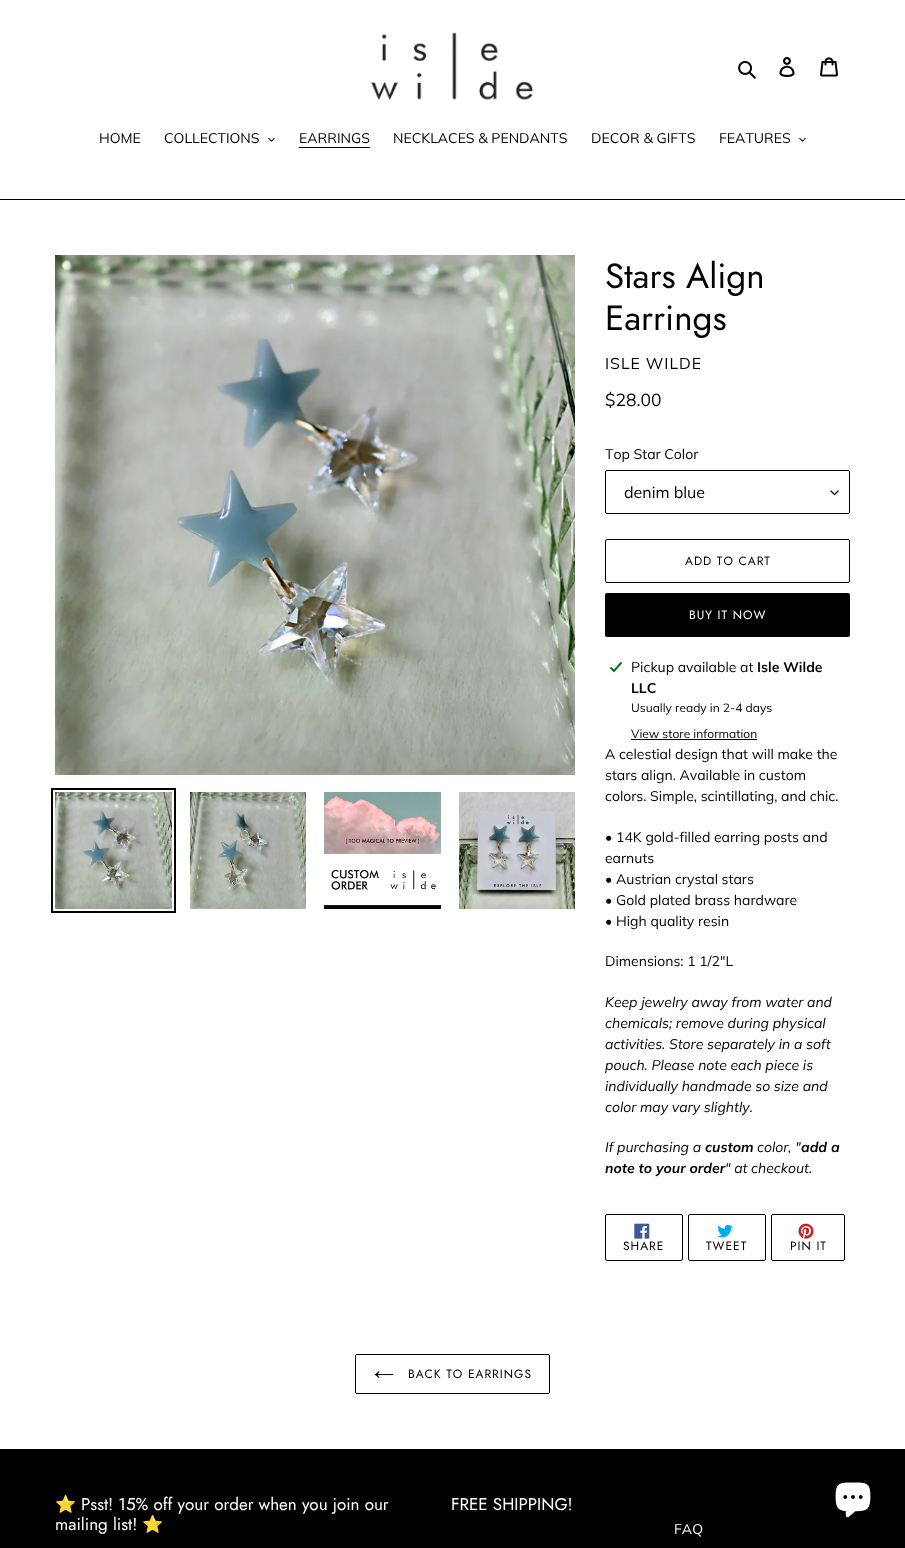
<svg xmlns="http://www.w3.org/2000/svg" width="905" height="1548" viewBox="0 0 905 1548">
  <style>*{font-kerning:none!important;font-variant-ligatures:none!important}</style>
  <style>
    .t1 { font: 14px Muli; fill: #000; }
    .t2 { font: 35px Jost; fill: #000; }
    .t3 { font: 15.75px Muli; letter-spacing: 1px; fill: #000; }
    .t4 { font: 17.5px Muli; fill: #000; }
    .t5 { font: 16px Muli; fill: #000; }
    .t6 { font: 12px Jost; letter-spacing: 1px; fill: #000; }
    .t7 { font: 12px Jost; letter-spacing: 1px; fill: #fff; }
    .t8 { font: bold 14px Muli; fill: #000; }
    .t9 { font: 12px Muli; fill: #000; }
    .t10 { font: italic 14px Muli; fill: #000; }
    .t11 { font: italic bold 14px Muli; fill: #000; }
    .t12 { font: 17px Noto Color Emoji; fill: #fff; }
    .t13 { font: 17px Jost; fill: #fff; }
    .t14 { font: 14px Muli; fill: #fff; }
  </style>
  <rect width="100%" height="100%" fill="#fff"/>
  <image x="371" y="32" width="163" height="68" href="images/1.png"/>
  <image x="738" y="61" width="18" height="18" href="images/2.png"/>
  <image x="779" y="57" width="16" height="20" href="images/3.png"/>
  <image x="820" y="57" width="18" height="20" href="images/4.png"/>
  <rect x="0" y="199" width="905" height="1" fill="#000"/>
  <text x="99" y="143" class="t1">HOME</text>
  <text x="164" y="143" class="t1">COLLECTIONS</text>
  <image x="268" y="137" width="7" height="5" href="images/5.png"/>
  <text x="299" y="143" class="t1">EARRINGS</text>
  <rect x="299" y="147" width="71" height="1" fill="#000"/>
  <text x="393" y="143" class="t1">NECKLACES &amp; PENDANTS</text>
  <text x="591" y="143" class="t1">DECOR &amp; GIFTS</text>
  <text x="719" y="143" class="t1">FEATURES</text>
  <image x="799" y="137" width="7" height="5" href="images/5.png"/>
  <image x="55" y="255" width="520" height="520" href="images/6.png"/>
  <rect x="52" y="789" width="123" height="123" fill="none" stroke="#000" stroke-width="2"/>
  <image x="55" y="792" width="117" height="117" href="images/7.png"/>
  <image x="190" y="792" width="116" height="117" href="images/8.png"/>
  <image x="324" y="792" width="117" height="117" href="images/9.png"/>
  <image x="459" y="792" width="116" height="117" href="images/10.png"/>
  <text x="605" y="288" class="t2">Stars Align</text>
  <text x="605" y="330" class="t2">Earrings</text>
  <text x="605" y="369" class="t3">ISLE WILDE</text>
  <text x="605" y="406" class="t4">$28.00</text>
  <text x="605" y="459" class="t1">Top Star Color</text>
  <image x="830" y="490" width="9" height="6" href="images/11.png"/>
  <rect x="605.5" y="470.5" width="244" height="43" rx="1.5" fill="none" stroke="#000"/>
  <text x="624" y="498" class="t5">denim blue</text>
  <rect x="605.5" y="539.5" width="244" height="43" rx="1.5" fill="none" stroke="#000"/>
  <text x="685" y="565" class="t6">ADD TO CART</text>
  <rect x="605" y="593" width="245" height="44" rx="2" fill="#000"/>
  <text x="689" y="619" class="t7">BUY IT NOW</text>
  <image x="610" y="662" width="12" height="10" href="images/12.png"/>
  <text x="631" y="672" class="t1">Pickup available at</text>
  <text x="757" y="672" class="t8">Isle Wilde</text>
  <text x="631" y="693" class="t8">LLC</text>
  <text x="631" y="712" class="t9">Usually ready in 2-4 days</text>
  <text x="631" y="738" class="t9">View store information</text>
  <rect x="631" y="739" width="126" height="1" fill="#000"/>
  <text x="605" y="759" class="t1">A celestial design that will make the</text>
  <text x="605" y="780" class="t1">stars align. Available in custom</text>
  <text x="605" y="801" class="t1">colors. Simple, scintillating, and chic.</text>
  <text x="605" y="842" class="t1">• 14K gold-filled earring posts and</text>
  <text x="605" y="863" class="t1">earnuts</text>
  <text x="605" y="884" class="t1">• Austrian crystal stars</text>
  <text x="605" y="905" class="t1">• Gold plated brass hardware</text>
  <text x="605" y="926" class="t1">• High quality resin</text>
  <text x="605" y="966" class="t1">Dimensions: 1 1/2"L</text>
  <text x="605" y="1007" class="t10">Keep jewelry away from water and</text>
  <text x="605" y="1028" class="t10">chemicals; remove during physical</text>
  <text x="605" y="1049" class="t10">activities. Store separately in a soft</text>
  <text x="605" y="1070" class="t10">pouch. Please note each piece is</text>
  <text x="605" y="1091" class="t10">individually handmade so size and</text>
  <text x="605" y="1112" class="t10">color may vary slightly.</text>
  <text x="605" y="1152" class="t10">If purchasing a</text>
  <text x="705" y="1152" class="t11">custom</text>
  <text x="757" y="1152" class="t10">color, "</text>
  <text x="801" y="1152" class="t11">add a</text>
  <text x="605" y="1173" class="t11">note to your order</text>
  <text x="725" y="1173" class="t10">" at checkout.</text>
  <rect x="605.5" y="1214.5" width="77" height="46" rx="1.5" fill="none" stroke="#000"/>
  <image x="634" y="1223" width="16" height="16" href="images/13.png"/>
  <text x="623" y="1250" class="t6">SHARE</text>
  <rect x="688.5" y="1214.5" width="77" height="46" rx="1.5" fill="none" stroke="#000"/>
  <image x="717" y="1224" width="16" height="14" href="images/14.png"/>
  <text x="706" y="1250" class="t6">TWEET</text>
  <rect x="771.5" y="1214.5" width="73" height="46" rx="1.5" fill="none" stroke="#000"/>
  <image x="798" y="1223" width="16" height="16" href="images/15.png"/>
  <text x="790" y="1250" class="t6">PIN IT</text>
  <rect x="355.5" y="1354.5" width="194" height="39" rx="1.5" fill="none" stroke="#000"/>
  <image x="374" y="1371" width="20" height="8" href="images/16.png"/>
  <text x="408" y="1378" class="t6">BACK TO EARRINGS</text>
  <rect x="0" y="1449" width="905" height="99" fill="#000"/>
  <text x="55" y="1510" class="t12">⭐</text>
  <text x="81" y="1510" class="t13">Psst! 15% off your order when you join our</text>
  <text x="55" y="1530" class="t13">mailing list!</text>
  <text x="142" y="1530" class="t12">⭐</text>
  <text x="451" y="1510" class="t13">FREE SHIPPING!</text>
  <text x="674" y="1534" class="t14">FAQ</text>
  <image x="835" y="1482" width="36" height="36" href="images/17.png"/>
</svg>
